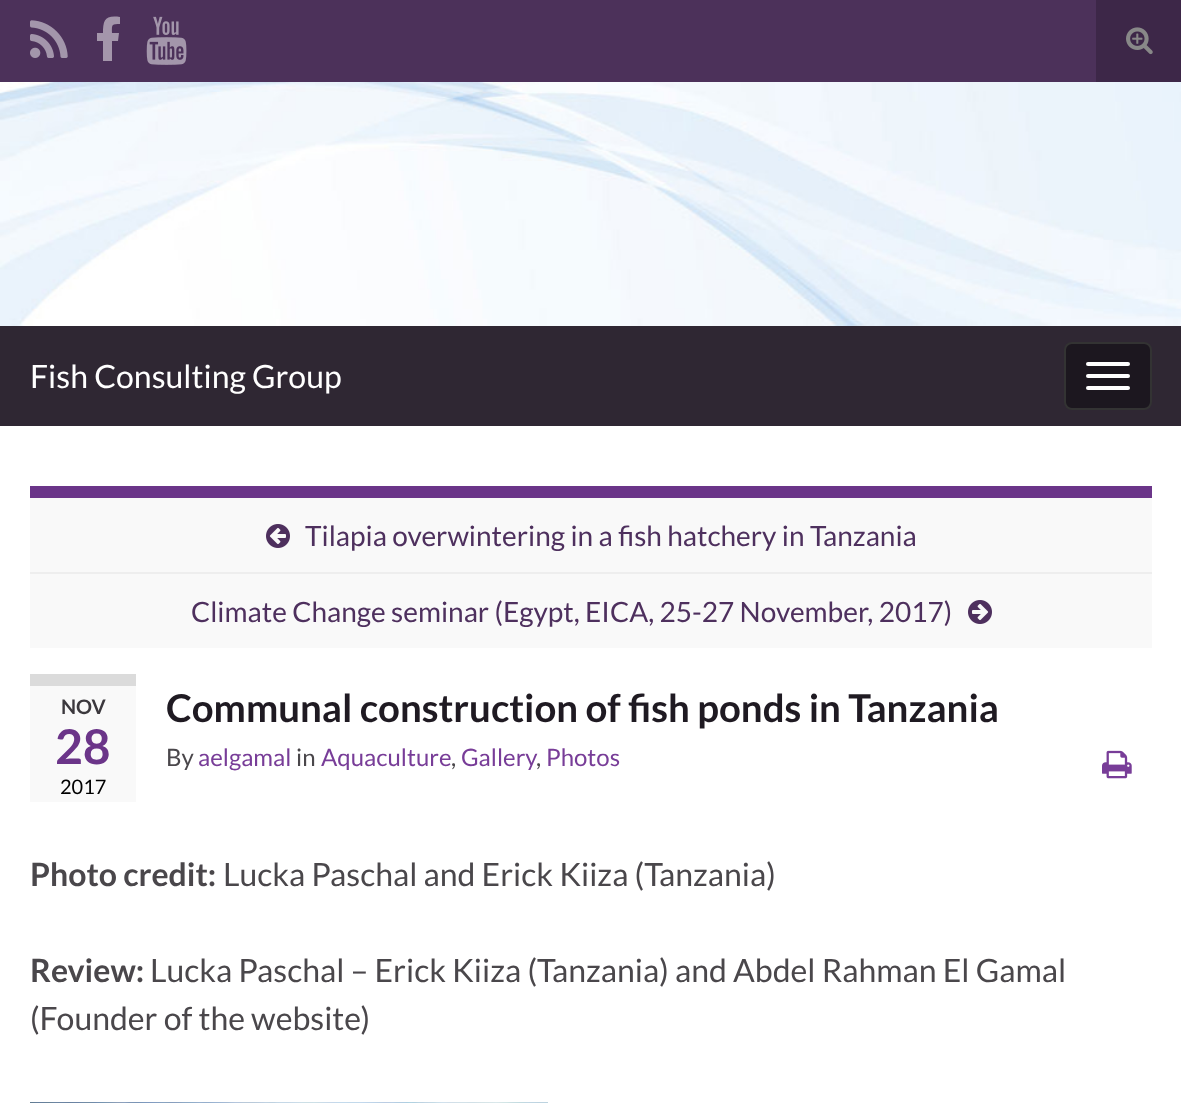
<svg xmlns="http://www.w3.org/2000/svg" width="1181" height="1103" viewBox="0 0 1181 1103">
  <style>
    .t1 { font: 32px Lato; fill: #fff; }
    .t2 { font: 28px Lato; fill: #4e305e; }
    .t3 { font: bold 20px Lato; fill: #3b383d; }
    .t4 { font: bold 48px Lato; fill: #6b3589; }
    .t5 { font: 20px Lato; fill: #000; }
    .t6 { font: bold 38.4px Lato; fill: #1f1a22; }
    .t7 { font: 24px Lato; fill: #4a474b; }
    .t8 { font: 24px Lato; fill: #783d98; }
    .t9 { font: bold 32px Lato; fill: #4a474b; }
    .t10 { font: 32px Lato; fill: #4a474b; }
  </style>
  <rect width="100%" height="100%" fill="#fff"/>
  <rect x="0" y="0" width="1096" height="82" fill="#4c315a"/>
  <image x="30" y="20" width="38" height="38" href="images/1.png"/>
  <path d="M120 17V24C111 24 112 25 112 33H119L118 41H112V61H103V41H97V33H103C103 20 105 15 120 17Z" fill="#a496ab"/>
  <image x="146" y="16" width="41" height="49" href="images/2.png"/>
  <rect x="1096" y="0" width="85" height="82" fill="#3d2748"/>
  <image x="1126" y="27" width="27" height="28" href="images/3.png"/>
  <image x="0" y="82" width="1181" height="244" href="images/4.png"/>
  <rect x="0" y="326" width="1181" height="100" fill="#2f2733"/>
  <text x="30" y="388" class="t1">Fish Consulting Group</text>
  <rect x="1065" y="343" width="86" height="66" rx="7" fill="#1c171f" stroke="#333" stroke-width="2"/>
  <rect x="1086" y="362" width="44" height="4" rx="2" fill="#fff"/>
  <rect x="1086" y="374" width="44" height="4" rx="2" fill="#fff"/>
  <rect x="1086" y="386" width="44" height="4" rx="2" fill="#fff"/>
  <rect x="30" y="498" width="1122" height="150" fill="#f9f9f9"/>
  <rect x="30" y="486" width="1122" height="12" fill="#6b3589"/>
  <image x="266" y="524" width="24" height="24" href="images/5.png"/>
  <text x="305" y="546" class="t2">Tilapia overwintering in a fish hatchery in Tanzania</text>
  <rect x="30" y="572" width="1122" height="2" fill="#eee"/>
  <text x="191" y="622" class="t2">Climate Change seminar (Egypt, EICA, 25-27 November, 2017)</text>
  <image x="968" y="600" width="24" height="24" href="images/6.png"/>
  <rect x="30" y="686" width="106" height="116" fill="#f9f9f9"/>
  <rect x="30" y="674" width="106" height="12" fill="#dbdbdb"/>
  <text x="61" y="714" class="t3">NOV</text>
  <text x="55" y="764" class="t4">28</text>
  <text x="60" y="794" class="t5">2017</text>
  <text x="166" y="722" class="t6">Communal construction of fish ponds in Tanzania</text>
  <text x="166" y="766" class="t7">By</text>
  <text x="198" y="766" class="t8">aelgamal</text>
  <text x="296" y="766" class="t7">in</text>
  <text x="321" y="766" class="t8">Aquaculture</text>
  <text x="451" y="766" class="t7">,</text>
  <text x="461" y="766" class="t8">Gallery</text>
  <text x="536" y="766" class="t7">,</text>
  <text x="546" y="766" class="t8">Photos</text>
  <image x="1102" y="750" width="30" height="29" href="images/7.png"/>
  <text x="30" y="886" class="t9">Photo credit:</text>
  <text x="223" y="886" class="t10">Lucka Paschal and Erick Kiiza (Tanzania)</text>
  <text x="30" y="982" class="t9">Review:</text>
  <text x="150" y="982" class="t10">Lucka Paschal – Erick Kiiza (Tanzania) and Abdel Rahman El Gamal</text>
  <text x="30" y="1030" class="t10">(Founder of the website)</text>
  <image x="30" y="1102" width="518" height="1" href="images/8.png"/>
</svg>
